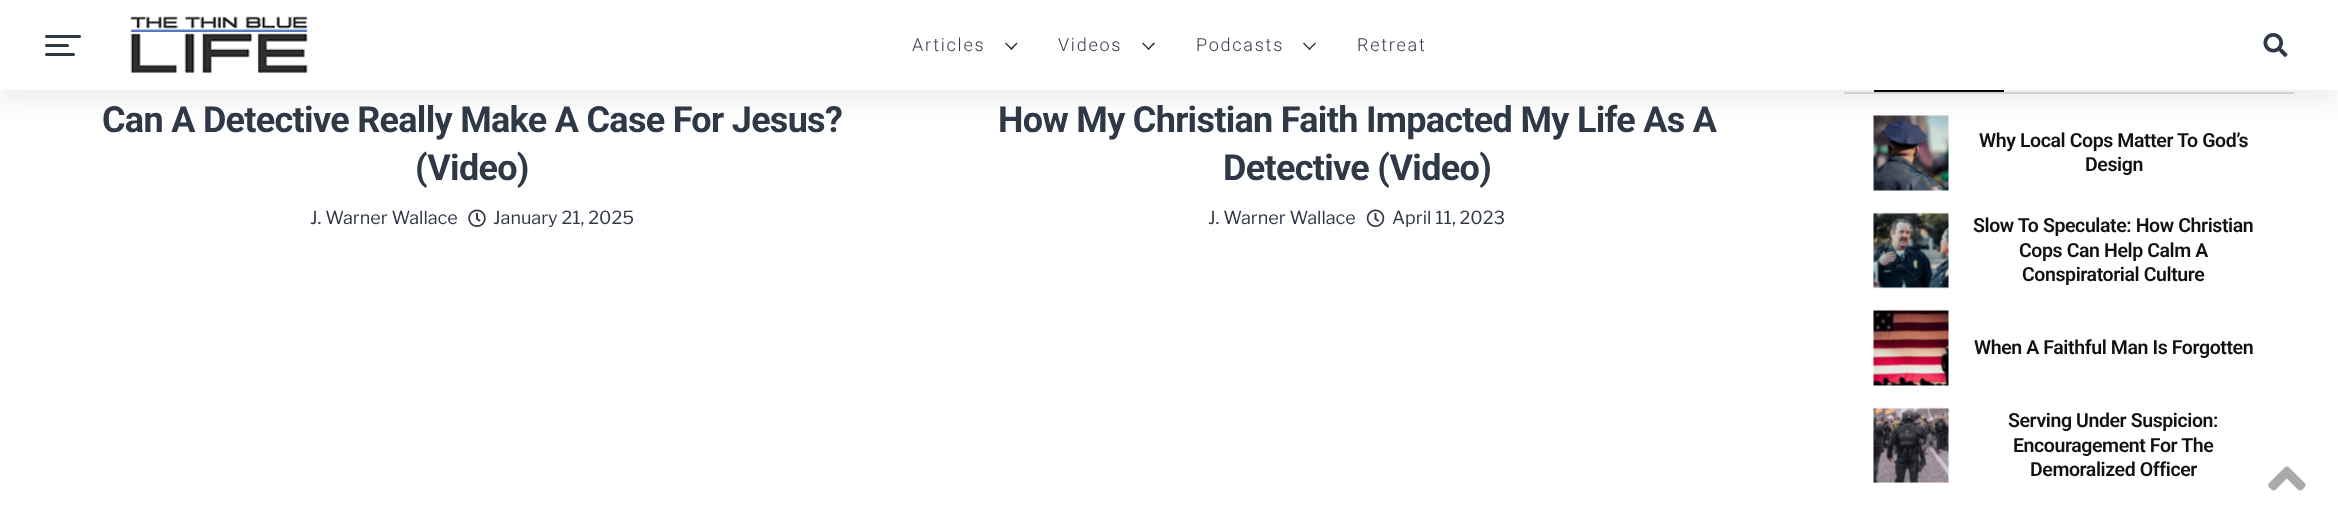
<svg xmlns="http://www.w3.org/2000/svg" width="2338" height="523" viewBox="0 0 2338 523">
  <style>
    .t1 { font: 300 18px Roboto; letter-spacing: 1.75px; fill: #2f3846; }
    .t2 { font: bold 36px Roboto; letter-spacing: -0.7px; fill: #2f3846; }
    .t3 { font: 18px Libre Franklin; fill: #2f3846; }
    .t4 { font: 600 19.5px Roboto; letter-spacing: -0.4px; fill: #111; }
  </style>
  <rect width="100%" height="100%" fill="#fff"/>
  <rect x="1844" y="92" width="450" height="2" fill="#ddd"/>
  <rect x="1874" y="90" width="130" height="2" fill="#000"/>
  <image x="1873" y="115" width="76" height="76" href="images/5.png"/>
  <rect x="0" y="12" width="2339" height="90" fill="#15151e14" filter="blur(12px)"/>
  <rect x="0" y="0" width="2338" height="90" fill="#fff"/>
  <rect x="45" y="35" width="36" height="3" rx="1.5" fill="#2f3846"/>
  <rect x="45" y="44" width="24" height="3" rx="1.5" fill="#2f3846"/>
  <rect x="45" y="53" width="30" height="3" rx="1.5" fill="#2f3846"/>
  <image x="130" y="16" width="178" height="57" href="images/1.png"/>
  <text x="912" y="51" class="t1">Articles</text>
  <path d="M1016.5 42.5L1017.5 43.5L1011.5 50L1010 49Z" fill="#2f3846"/>
  <path d="M1006 42.5L1012.5 49L1011.5 50L1005 43.5Z" fill="#2f3846"/>
  <text x="1058" y="51" class="t1">Videos</text>
  <path d="M1153.5 42.5L1155 43.5L1148.5 50L1147.5 49Z" fill="#2f3846"/>
  <path d="M1143 42.5L1149.5 49L1148.5 50L1142 43.5Z" fill="#2f3846"/>
  <text x="1196" y="51" class="t1">Podcasts</text>
  <path d="M1315 42.5L1316 43.5L1309.5 50L1308.5 49Z" fill="#2f3846"/>
  <path d="M1304 42.5L1310.5 49L1309.5 50L1303 43.5Z" fill="#2f3846"/>
  <text x="1357" y="51" class="t1">Retreat</text>
  <image x="2263" y="33" width="25" height="24" href="images/2.png"/>
  <text x="102" y="132" class="t2">Can A Detective Really Make A Case For Jesus?</text>
  <text x="415" y="180" class="t2">(Video)</text>
  <text x="310" y="224" class="t3">J. Warner Wallace</text>
  <image x="468" y="209" width="18" height="18" href="images/3.png"/>
  <text x="493" y="224" class="t3">January 21, 2025</text>
  <text x="998" y="132" class="t2">How My Christian Faith Impacted My Life As A</text>
  <text x="1223" y="180" class="t2">Detective (Video)</text>
  <text x="1208" y="224" class="t3">J. Warner Wallace</text>
  <image x="1366" y="209" width="19" height="18" href="images/4.png"/>
  <text x="1392" y="224" class="t3">April 11, 2023</text>
  <text x="1979" y="147" class="t4">Why Local Cops Matter To God’s</text>
  <text x="2085" y="171" class="t4">Design</text>
  <image x="1873" y="212" width="76" height="77" href="images/6.png"/>
  <text x="1973" y="232" class="t4">Slow To Speculate: How Christian</text>
  <text x="2019" y="257" class="t4">Cops Can Help Calm A</text>
  <text x="2022" y="281" class="t4">Conspiratorial Culture</text>
  <image x="1873" y="310" width="76" height="76" href="images/7.png"/>
  <text x="1974" y="354" class="t4">When A Faithful Man Is Forgotten</text>
  <image x="1873" y="407" width="76" height="76" href="images/8.png"/>
  <text x="2008" y="427" class="t4">Serving Under Suspicion:</text>
  <text x="2013" y="452" class="t4">Encouragement For The</text>
  <text x="2030" y="476" class="t4">Demoralized Officer</text>
  <image x="2268" y="466" width="38" height="25" href="images/9.png"/>
</svg>
